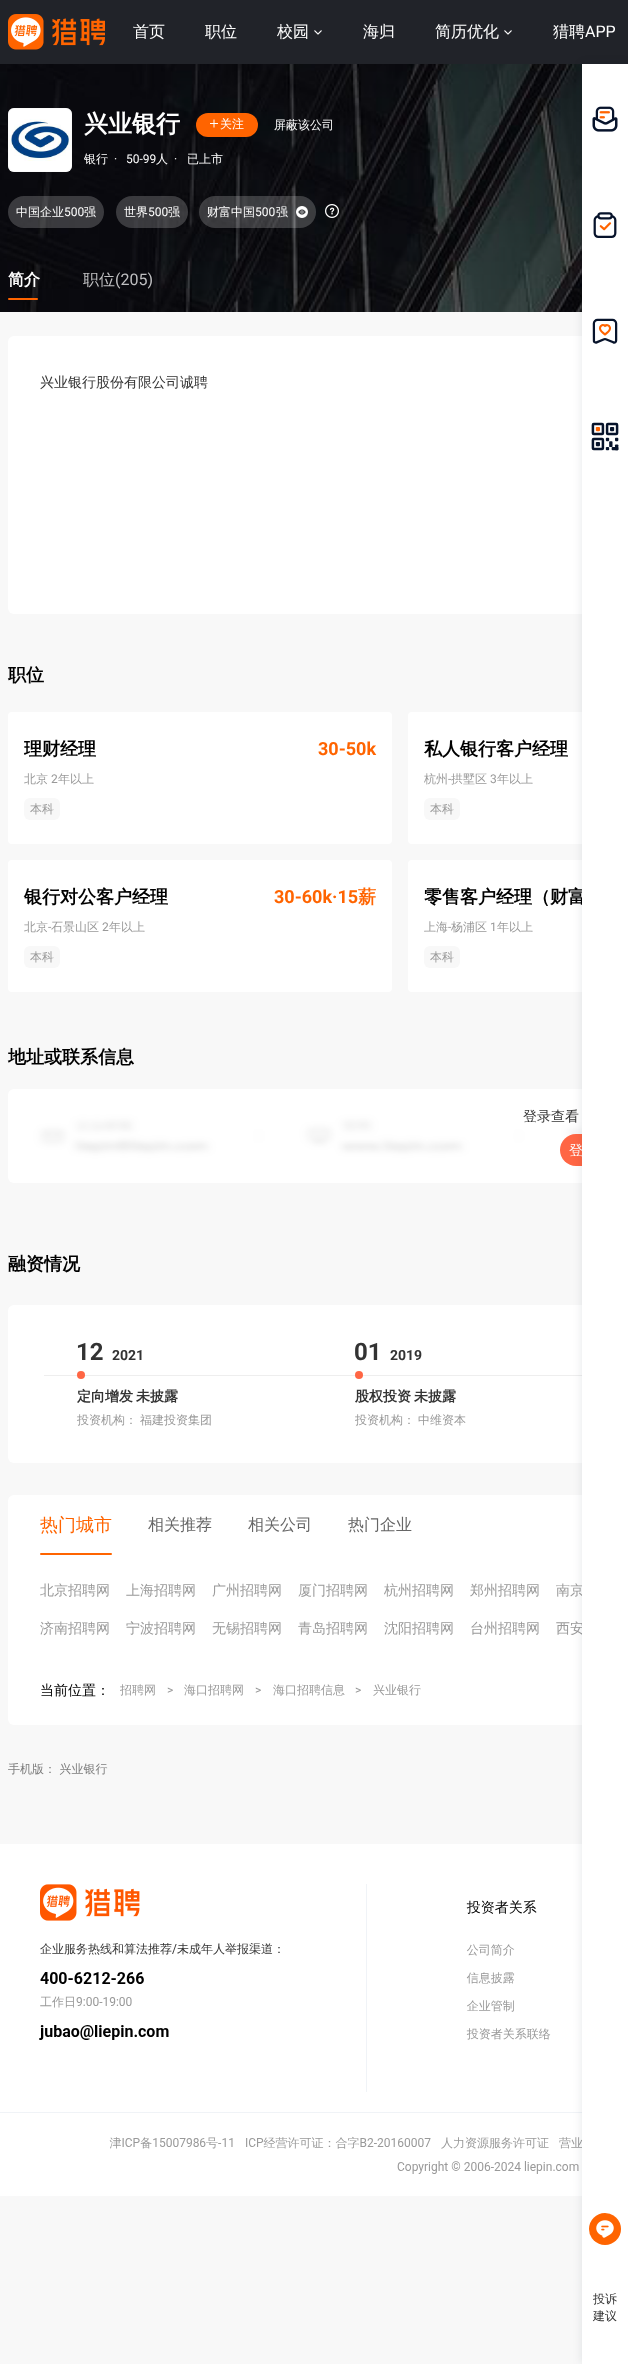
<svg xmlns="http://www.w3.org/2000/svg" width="628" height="2364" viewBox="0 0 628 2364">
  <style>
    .t1 { font: 500 16px WenQuanYi Zen Hei; fill: #fff; }
    .t2 { font: 16px Roboto; fill: #fff; }
    .t3 { font: bold 24px WenQuanYi Zen Hei; fill: #fff; }
    .t4 { font: 500 12px WenQuanYi Zen Hei; fill: #fff; }
    .t5 { font: 12px Roboto; fill: #fff; }
    .t6 { font: bold 16px WenQuanYi Zen Hei; fill: #fff; }
    .t7 { font: 500 16px WenQuanYi Zen Hei; fill: #bfbfc1; }
    .t8 { font: 16px Roboto; fill: #bfbfc1; }
    .t9 { font: 500 14px WenQuanYi Zen Hei; fill: #333; }
    .t10 { font: bold 18px WenQuanYi Zen Hei; fill: #000; }
    .t11 { font: bold 18px Roboto; fill: #ff6400; }
    .t12 { font: 500 12px WenQuanYi Zen Hei; fill: #999; }
    .t13 { font: 12px Roboto; fill: #999; }
    .t14 { font: bold 18px WenQuanYi Zen Hei; fill: #ff6400; }
    .t15 { font: 500 14px WenQuanYi Zen Hei; fill: #fff; }
    .t16 { font: bold 24px Roboto; fill: #333; }
    .t17 { font: bold 14px Roboto; fill: #333; }
    .t18 { font: bold 14px WenQuanYi Zen Hei; fill: #333; }
    .t19 { font: 500 18px WenQuanYi Zen Hei; fill: #ff6400; }
    .t20 { font: 500 16px WenQuanYi Zen Hei; fill: #666; }
    .t21 { font: 500 14px WenQuanYi Zen Hei; fill: #999; }
    .t22 { font: 500 14px WenQuanYi Zen Hei; fill: #000; }
    .t23 { font: 500 12px WenQuanYi Zen Hei; fill: #7d7d7d; }
    .t24 { font: 500 12px WenQuanYi Zen Hei; fill: #333; }
  </style>
  <rect width="100%" height="100%" fill="#f8f8f8"/>
  <rect x="0" y="0" width="628" height="64" fill="#212329"/>
  <image x="8" y="14" width="97" height="36" href="images/1.png"/>
  <text x="133" y="37" class="t1">首页</text>
  <text x="205" y="37" class="t1">职位</text>
  <image x="314" y="30" width="8" height="5" href="images/2.png"/>
  <text x="277" y="37" class="t1">校园</text>
  <text x="363" y="37" class="t1">海归</text>
  <image x="504" y="30" width="8" height="5" href="images/2.png"/>
  <text x="435" y="37" class="t1">简历优化</text>
  <text x="553" y="37" class="t1">猎聘</text>
  <text x="585" y="37" class="t2">APP</text>
  <image x="0" y="64" width="582" height="248" href="images/3.png"/>
  <rect x="8" y="108" width="64" height="64" rx="6" fill="#fff"/>
  <rect x="8.5" y="108.5" width="63" height="63" rx="5.5" fill="none" stroke="#f5f5f580"/>
  <image x="9" y="119" width="62" height="42" href="images/4.png"/>
  <text x="84" y="132" class="t3">兴业银行</text>
  <rect x="196" y="113" width="62" height="24" rx="12" fill="#ff6400"/>
  <image x="210" y="119" width="8" height="9" href="images/5.png"/>
  <text x="220" y="128" class="t4">关注</text>
  <text x="274" y="129" class="t4">屏蔽该公司</text>
  <text x="84" y="163" class="t4">银行</text>
  <text x="114" y="163" class="t5">·</text>
  <text x="126" y="163" class="t5">50-99</text>
  <text x="156" y="163" class="t4">人</text>
  <text x="174" y="163" class="t5">·</text>
  <text x="187" y="163" class="t4">已上市</text>
  <rect x="8" y="196" width="96" height="32" rx="16" fill="#ffffff33"/>
  <text x="16" y="216" class="t4">中国企业</text>
  <text x="64" y="216" class="t5">500</text>
  <text x="84" y="216" class="t4">强</text>
  <rect x="116" y="196" width="72" height="32" rx="16" fill="#ffffff33"/>
  <text x="124" y="216" class="t4">世界</text>
  <text x="148" y="216" class="t5">500</text>
  <text x="168" y="216" class="t4">强</text>
  <rect x="199" y="196" width="117" height="32" rx="16" fill="#ffffff33"/>
  <text x="207" y="216" class="t4">财富中国</text>
  <text x="255" y="216" class="t5">500</text>
  <text x="276" y="216" class="t4">强</text>
  <image x="296" y="206" width="12" height="12" href="images/6.png"/>
  <image x="325" y="204" width="14" height="14" href="images/7.png"/>
  <text x="8" y="285" class="t6">简介</text>
  <rect x="8" y="298" width="30" height="2" rx="1" fill="#ff6400"/>
  <text x="83" y="285" class="t7">职位</text>
  <text x="115" y="285" class="t8">(205)</text>
  <rect x="8" y="336" width="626" height="278" rx="6" fill="#fff"/>
  <text x="40" y="387" class="t9">兴业银行股份有限公司诚聘</text>
  <text x="8" y="681" class="t10">职位</text>
  <rect x="8" y="712" width="384" height="132" rx="4" fill="#fff"/>
  <text x="24" y="755" class="t10">理财经理</text>
  <text x="318" y="755" class="t11">30-50k</text>
  <text x="24" y="783" class="t12">北京</text>
  <text x="51" y="783" class="t13">2</text>
  <text x="58" y="783" class="t12">年以上</text>
  <rect x="24" y="798" width="36" height="22" rx="6" fill="#f8f8f8"/>
  <text x="30" y="813" class="t12">本科</text>
  <rect x="408" y="712" width="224" height="132" rx="4" fill="#fff"/>
  <text x="424" y="755" class="t10">私人银行客户经理</text>
  <text x="424" y="783" class="t12">杭州</text>
  <text x="448" y="783" class="t13">-</text>
  <text x="451" y="783" class="t12">拱墅区</text>
  <text x="490" y="783" class="t13">3</text>
  <text x="497" y="783" class="t12">年以上</text>
  <rect x="424" y="798" width="36" height="22" rx="6" fill="#f8f8f8"/>
  <text x="430" y="813" class="t12">本科</text>
  <rect x="8" y="860" width="384" height="132" rx="4" fill="#fff"/>
  <text x="24" y="903" class="t10">银行对公客户经理</text>
  <text x="274" y="903" class="t11">30-60k·15</text>
  <text x="358" y="903" class="t14">薪</text>
  <text x="24" y="931" class="t12">北京</text>
  <text x="48" y="931" class="t13">-</text>
  <text x="51" y="931" class="t12">石景山区</text>
  <text x="102" y="931" class="t13">2</text>
  <text x="109" y="931" class="t12">年以上</text>
  <rect x="24" y="946" width="36" height="22" rx="6" fill="#f8f8f8"/>
  <text x="30" y="961" class="t12">本科</text>
  <rect x="408" y="860" width="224" height="132" rx="4" fill="#fff"/>
  <text x="424" y="903" class="t10">零售客户经理（财富</text>
  <text x="424" y="931" class="t12">上海</text>
  <text x="448" y="931" class="t13">-</text>
  <text x="451" y="931" class="t12">杨浦区</text>
  <text x="490" y="931" class="t13">1</text>
  <text x="497" y="931" class="t12">年以上</text>
  <rect x="424" y="946" width="36" height="22" rx="6" fill="#f8f8f8"/>
  <text x="430" y="961" class="t12">本科</text>
  <text x="8" y="1063" class="t10">地址或联系信息</text>
  <image x="8" y="1089" width="574" height="94" href="images/8.png"/>
  <text x="523" y="1121" class="t9">登录查看</text>
  <rect x="560" y="1134" width="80" height="32" rx="16" fill="#f64"/>
  <text x="569" y="1155" class="t15">登</text>
  <text x="8" y="1270" class="t10">融资情况</text>
  <rect x="8" y="1305" width="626" height="158" rx="6" fill="#fff"/>
  <text x="76" y="1360" class="t16">12</text>
  <text x="112" y="1360" class="t17">2021</text>
  <rect x="44" y="1375" width="538" height="1" fill="#eee"/>
  <circle cx="81" cy="1375" r="4" fill="#f64"/>
  <text x="77" y="1401" class="t18">定向增发</text>
  <text x="136" y="1401" class="t18">未披露</text>
  <text x="77" y="1424" class="t12">投资机构：</text>
  <text x="140" y="1424" class="t12">福建投资集团</text>
  <text x="354" y="1360" class="t16">01</text>
  <text x="390" y="1360" class="t17">2019</text>
  <circle cx="359" cy="1375" r="4" fill="#f64"/>
  <text x="355" y="1401" class="t18">股权投资</text>
  <text x="414" y="1401" class="t18">未披露</text>
  <text x="355" y="1424" class="t12">投资机构：</text>
  <text x="418" y="1424" class="t12">中维资本</text>
  <rect x="8" y="1495" width="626" height="230" rx="6" fill="#fff"/>
  <text x="40" y="1531" class="t19">热门城市</text>
  <rect x="40" y="1553" width="72" height="2" rx="1" fill="#ff6400"/>
  <text x="148" y="1530" class="t20">相关推荐</text>
  <text x="248" y="1530" class="t20">相关公司</text>
  <text x="348" y="1530" class="t20">热门企业</text>
  <text x="40" y="1595" class="t21">北京招聘网</text>
  <text x="126" y="1595" class="t21">上海招聘网</text>
  <text x="212" y="1595" class="t21">广州招聘网</text>
  <text x="298" y="1595" class="t21">厦门招聘网</text>
  <text x="384" y="1595" class="t21">杭州招聘网</text>
  <text x="470" y="1595" class="t21">郑州招聘网</text>
  <text x="556" y="1595" class="t21">南京</text>
  <text x="40" y="1633" class="t21">济南招聘网</text>
  <text x="126" y="1633" class="t21">宁波招聘网</text>
  <text x="212" y="1633" class="t21">无锡招聘网</text>
  <text x="298" y="1633" class="t21">青岛招聘网</text>
  <text x="384" y="1633" class="t21">沈阳招聘网</text>
  <text x="470" y="1633" class="t21">台州招聘网</text>
  <text x="556" y="1633" class="t21">西安</text>
  <text x="40" y="1695" class="t22">当前位置：</text>
  <text x="120" y="1694" class="t12">招聘网</text>
  <text x="167" y="1694" class="t13">&gt;</text>
  <text x="184" y="1694" class="t12">海口招聘网</text>
  <text x="255" y="1694" class="t13">&gt;</text>
  <text x="273" y="1694" class="t12">海口招聘信息</text>
  <text x="355" y="1694" class="t13">&gt;</text>
  <text x="373" y="1694" class="t12">兴业银行</text>
  <text x="8" y="1773" class="t23">手机版： 兴业银行</text>
  <image x="0" y="1844" width="582" height="352" href="images/9.png"/>
  <rect x="582" y="64" width="46" height="2300" fill="#07132b1a" filter="blur(5px)"/>
  <rect x="582" y="64" width="46" height="2300" fill="#fff"/>
  <image x="592" y="106" width="26" height="26" href="images/10.png"/>
  <image x="593" y="212" width="24" height="26" href="images/11.png"/>
  <image x="592" y="318" width="26" height="26" href="images/12.png"/>
  <image x="591" y="422" width="28" height="29" href="images/13.png"/>
  <circle cx="605" cy="2229" r="16" fill="#ff6400"/>
  <image x="596" y="2220" width="18" height="18" href="images/14.png"/>
  <text x="593" y="2303" class="t24">投诉</text>
  <text x="593" y="2320" class="t24">建议</text>
</svg>
